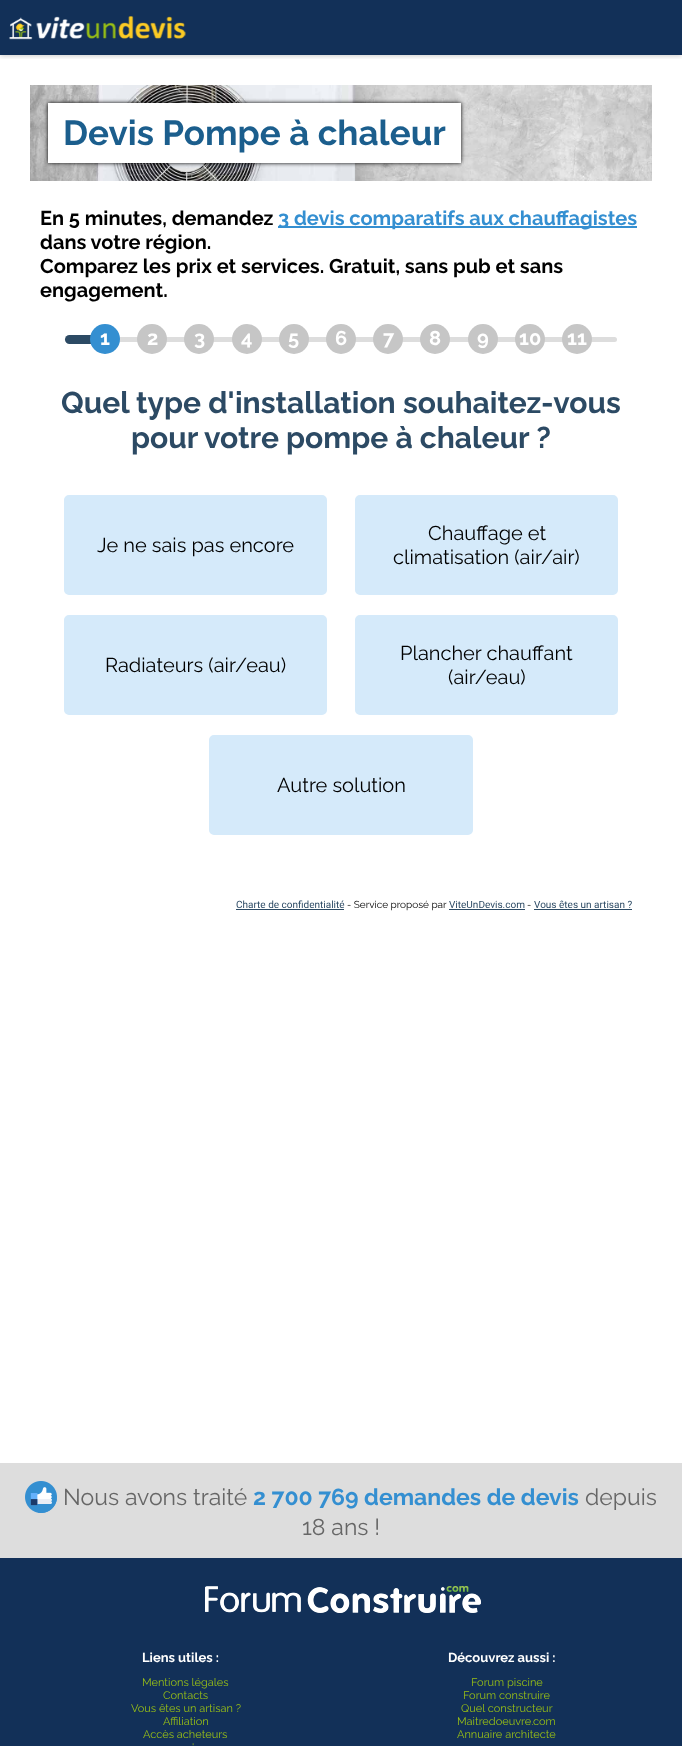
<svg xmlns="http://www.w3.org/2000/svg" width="682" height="1746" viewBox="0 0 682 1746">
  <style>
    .t1 { font: bold 35px Raleway; fill: #1b5e8d; }
    .t2 { font: bold 20px Raleway; fill: #000; }
    .t3 { font: bold 20px Raleway; fill: #348fd1; }
    .t4 { font: bold 20px Raleway; fill: #fff; }
    .t5 { font: bold 30px Raleway; fill: #2c4a64; }
    .t6 { font: 20px Raleway; fill: #000; }
    .t7 { font: 10px Roboto; fill: #2c4a64; }
    .t8 { font: 10px Raleway; fill: #000; }
    .t9 { font: 23px Raleway; fill: #666; }
    .t10 { font: bold 23px Raleway; fill: #348fd1; }
    .t11 { font: bold 13px Raleway; fill: #fff; }
    .t12 { font: 11px Raleway; fill: #98bf16; }
  </style>
  <defs>
    <clipPath id="clip1"><rect x="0" y="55" width="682" height="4"/></clipPath>
  </defs>
  <rect width="100%" height="100%" fill="#123058"/>
  <rect x="0" y="55" width="682" height="1408" fill="#fff"/>
  <g clip-path="url(#clip1)">
    <rect x="0" y="1" width="682" height="55" fill="#00000033" filter="blur(2.5px)"/>
  </g>
  <image x="9" y="16" width="177" height="24" href="images/1.png"/>
  <image x="30" y="85" width="622" height="96" href="images/2.png"/>
  <rect x="48" y="103" width="413" height="60" fill="#000" filter="blur(2px)"/>
  <rect x="48" y="103" width="413" height="60" fill="#fff"/>
  <text x="63" y="145" class="t1">Devis Pompe à chaleur</text>
  <text x="40" y="225" class="t2">En 5 minutes, demandez</text>
  <rect x="278" y="226" width="359" height="2" fill="#348fd1"/>
  <text x="278" y="225" class="t3">3 devis comparatifs aux chauffagistes</text>
  <text x="40" y="249" class="t2">dans votre région.</text>
  <text x="40" y="273" class="t2">Comparez les prix et services. Gratuit, sans pub et sans</text>
  <text x="40" y="297" class="t2">engagement.</text>
  <rect x="65" y="337" width="552" height="5" rx="2.5" fill="#ddd"/>
  <rect x="65" y="335" width="40" height="9" rx="4.5" fill="#2c4a64"/>
  <circle cx="105" cy="339" r="15" fill="#348fd1"/>
  <text x="100" y="345" class="t4">1</text>
  <circle cx="152" cy="339" r="15" fill="#c6c6c6"/>
  <text x="147" y="345" class="t4">2</text>
  <circle cx="199" cy="339" r="15" fill="#c6c6c6"/>
  <text x="194" y="345" class="t4">3</text>
  <circle cx="247" cy="339" r="15" fill="#c6c6c6"/>
  <text x="241" y="345" class="t4">4</text>
  <circle cx="294" cy="339" r="15" fill="#c6c6c6"/>
  <text x="288" y="345" class="t4">5</text>
  <circle cx="341" cy="339" r="15" fill="#c6c6c6"/>
  <text x="335" y="345" class="t4">6</text>
  <circle cx="388" cy="339" r="15" fill="#c6c6c6"/>
  <text x="383" y="345" class="t4">7</text>
  <circle cx="435" cy="339" r="15" fill="#c6c6c6"/>
  <text x="429" y="345" class="t4">8</text>
  <circle cx="483" cy="339" r="15" fill="#c6c6c6"/>
  <text x="477" y="345" class="t4">9</text>
  <circle cx="530" cy="339" r="15" fill="#c6c6c6"/>
  <text x="519" y="345" class="t4">10</text>
  <circle cx="577" cy="339" r="15" fill="#c6c6c6"/>
  <text x="567" y="345" class="t4">11</text>
  <text x="61" y="413" class="t5">Quel type d'installation souhaitez-vous</text>
  <text x="131" y="448" class="t5">pour votre pompe à chaleur ?</text>
  <rect x="65.5" y="496.5" width="260" height="97" rx="3.5" fill="#d5eafa" stroke="#d5eafa" stroke-width="3"/>
  <text x="97" y="552" class="t6">Je ne sais pas encore</text>
  <rect x="356.5" y="496.5" width="260" height="97" rx="3.5" fill="#d5eafa" stroke="#d5eafa" stroke-width="3"/>
  <text x="428" y="540" class="t6">Chauffage et</text>
  <text x="393" y="564" class="t6">climatisation (air/air)</text>
  <rect x="65.5" y="616.5" width="260" height="97" rx="3.5" fill="#d5eafa" stroke="#d5eafa" stroke-width="3"/>
  <text x="105" y="672" class="t6">Radiateurs (air/eau)</text>
  <rect x="356.5" y="616.5" width="260" height="97" rx="3.5" fill="#d5eafa" stroke="#d5eafa" stroke-width="3"/>
  <text x="400" y="660" class="t6">Plancher chauffant</text>
  <text x="448" y="684" class="t6">(air/eau)</text>
  <rect x="210.5" y="736.5" width="261" height="97" rx="3.5" fill="#d5eafa" stroke="#d5eafa" stroke-width="3"/>
  <text x="277" y="792" class="t6">Autre solution</text>
  <text x="236" y="908" class="t7">Charte de confidentialité</text>
  <rect x="236" y="909" width="108" height="1" fill="#2c4a64"/>
  <text x="347" y="908" class="t8">- Service proposé par</text>
  <text x="449" y="908" class="t7">ViteUnDevis.com</text>
  <rect x="449" y="909" width="76" height="1" fill="#2c4a64"/>
  <text x="527" y="908" class="t8">-</text>
  <text x="534" y="908" class="t7">Vous êtes un artisan ?</text>
  <rect x="534" y="909" width="98" height="1" fill="#2c4a64"/>
  <rect x="0" y="1463" width="682" height="95" fill="#ddd"/>
  <image x="25" y="1481" width="32" height="32" href="images/3.png"/>
  <text x="63" y="1505" class="t9">Nous avons traité</text>
  <text x="253" y="1505" class="t10">2 700 769 demandes de devis</text>
  <text x="585" y="1505" class="t9">depuis</text>
  <text x="302" y="1535" class="t9">18 ans !</text>
  <image x="205" y="1586" width="276" height="27" href="images/4.png"/>
  <text x="142" y="1662" class="t11">Liens utiles :</text>
  <text x="142" y="1686" class="t12">Mentions légales</text>
  <text x="163" y="1699" class="t12">Contacts</text>
  <text x="131" y="1712" class="t12">Vous êtes un artisan ?</text>
  <text x="163" y="1725" class="t12">Affiliation</text>
  <text x="143" y="1738" class="t12">Accès acheteurs</text>
  <text x="192" y="1751" class="t12">'</text>
  <text x="448" y="1662" class="t11">Découvrez aussi :</text>
  <text x="471" y="1686" class="t12">Forum piscine</text>
  <text x="463" y="1699" class="t12">Forum construire</text>
  <text x="461" y="1712" class="t12">Quel constructeur</text>
  <text x="457" y="1725" class="t12">Maitredoeuvre.com</text>
  <text x="457" y="1738" class="t12">Annuaire architecte</text>
</svg>
